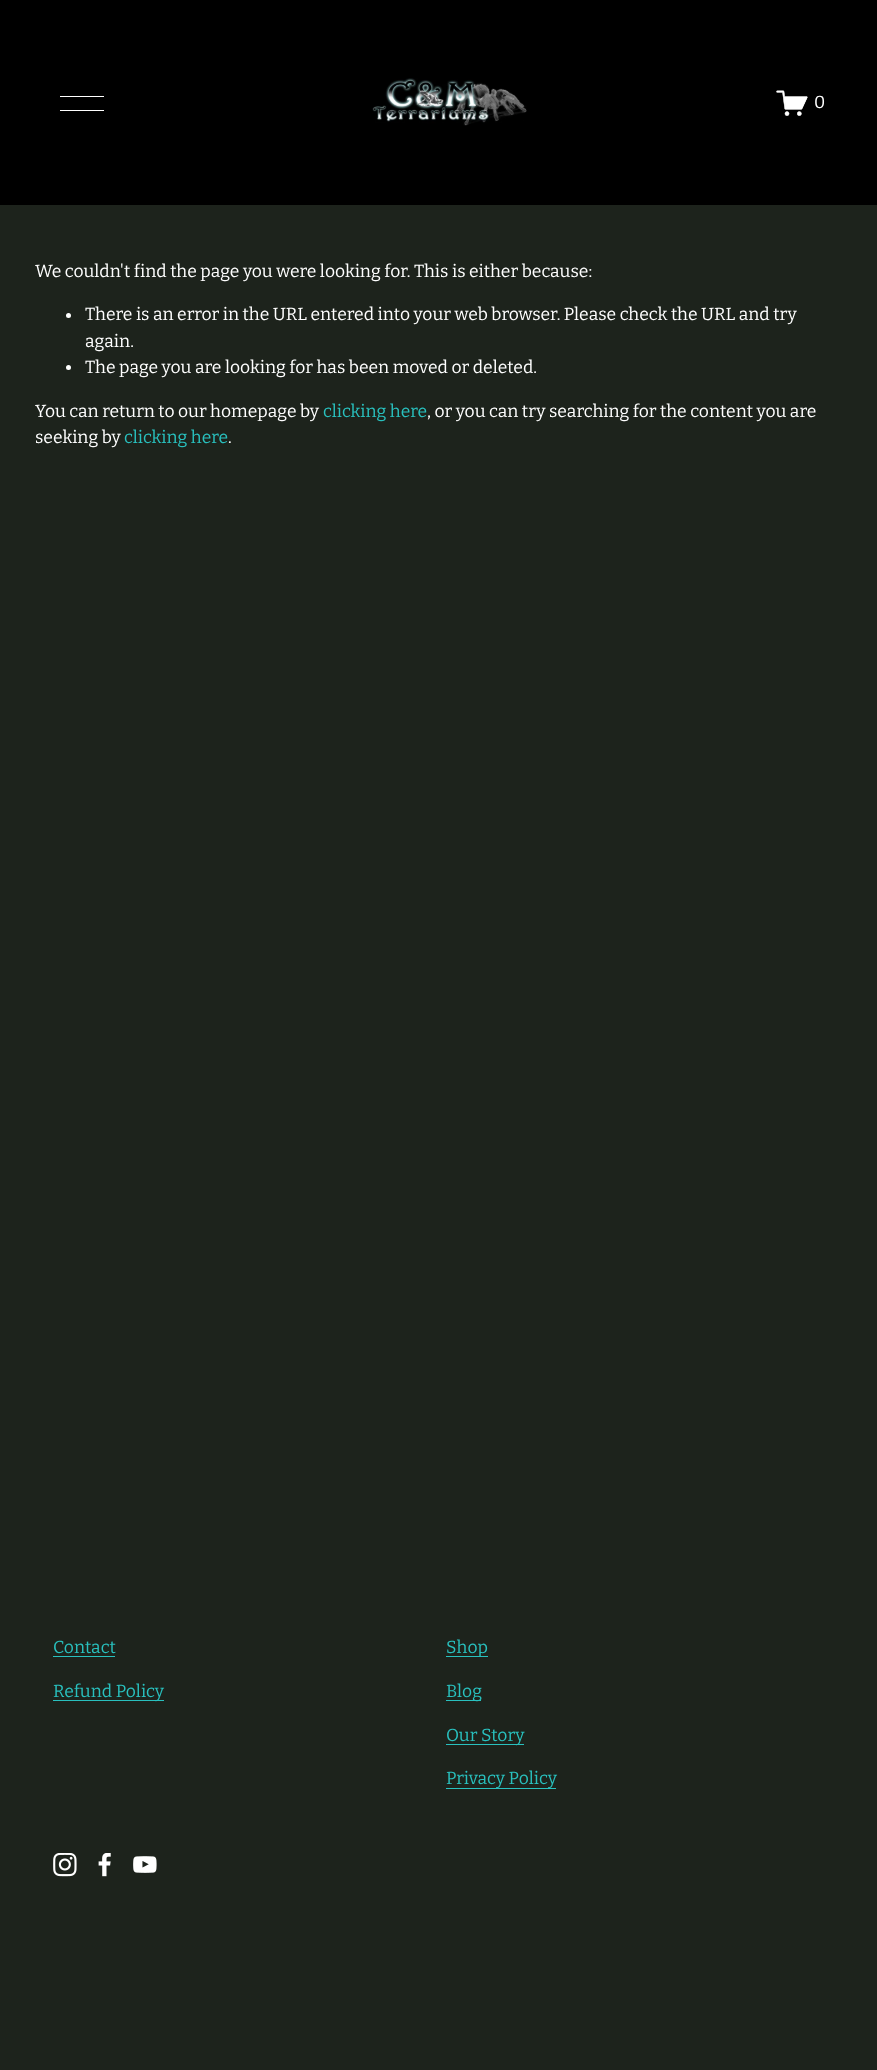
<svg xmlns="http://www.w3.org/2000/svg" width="877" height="2070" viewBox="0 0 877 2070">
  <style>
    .t1 { font: 17.5px Bitter; fill: #fff; }
    .t2 { font: 17.5px Bitter; fill: #29c0be; }
  </style>
  <rect width="100%" height="100%" fill="#1d231c"/>
  <rect x="0" y="0" width="877" height="205" fill="#000"/>
  <rect x="60" y="96" width="44" height="1" fill="#fff"/>
  <rect x="60" y="110" width="44" height="1" fill="#fff"/>
  <image x="372" y="78" width="155" height="48" href="images/1.png"/>
  <image x="776" y="90" width="32" height="26" href="images/2.png"/>
  <text x="814" y="108" class="t1">0</text>
  <text x="35" y="277" class="t1">We couldn't find the page you were looking for. This is either because:</text>
  <circle cx="68.5" cy="315.5" r="2.5" fill="#fff"/>
  <text x="85" y="320" class="t1">There is an error in the URL entered into your web browser. Please check the URL and try</text>
  <text x="85" y="347" class="t1">again.</text>
  <circle cx="68.5" cy="367.5" r="2.5" fill="#fff"/>
  <text x="85" y="373" class="t1">The page you are looking for has been moved or deleted.</text>
  <text x="35" y="417" class="t1">You can return to our homepage by</text>
  <text x="323" y="417" class="t2">clicking here</text>
  <text x="427" y="417" class="t1">, or you can try searching for the content you are</text>
  <text x="35" y="443" class="t1">seeking by</text>
  <text x="124" y="443" class="t2">clicking here</text>
  <text x="228" y="443" class="t1">.</text>
  <text x="53" y="1653" class="t2">Contact</text>
  <rect x="53" y="1656" width="62" height="1" fill="#29c0be"/>
  <rect x="53" y="1700" width="111" height="1" fill="#29c0be"/>
  <text x="53" y="1697" class="t2">Refund Policy</text>
  <rect x="446" y="1656" width="42" height="1" fill="#29c0be"/>
  <text x="446" y="1653" class="t2">Shop</text>
  <rect x="446" y="1700" width="35" height="1" fill="#29c0be"/>
  <text x="446" y="1697" class="t2">Blog</text>
  <rect x="446" y="1744" width="78" height="1" fill="#29c0be"/>
  <text x="446" y="1741" class="t2">Our Story</text>
  <rect x="446" y="1788" width="110" height="1" fill="#29c0be"/>
  <text x="446" y="1784" class="t2">Privacy Policy</text>
  <image x="53" y="1853" width="24" height="24" href="images/3.png"/>
  <image x="98" y="1853" width="13" height="24" href="images/4.png"/>
  <image x="133" y="1856" width="24" height="17" href="images/5.png"/>
</svg>
